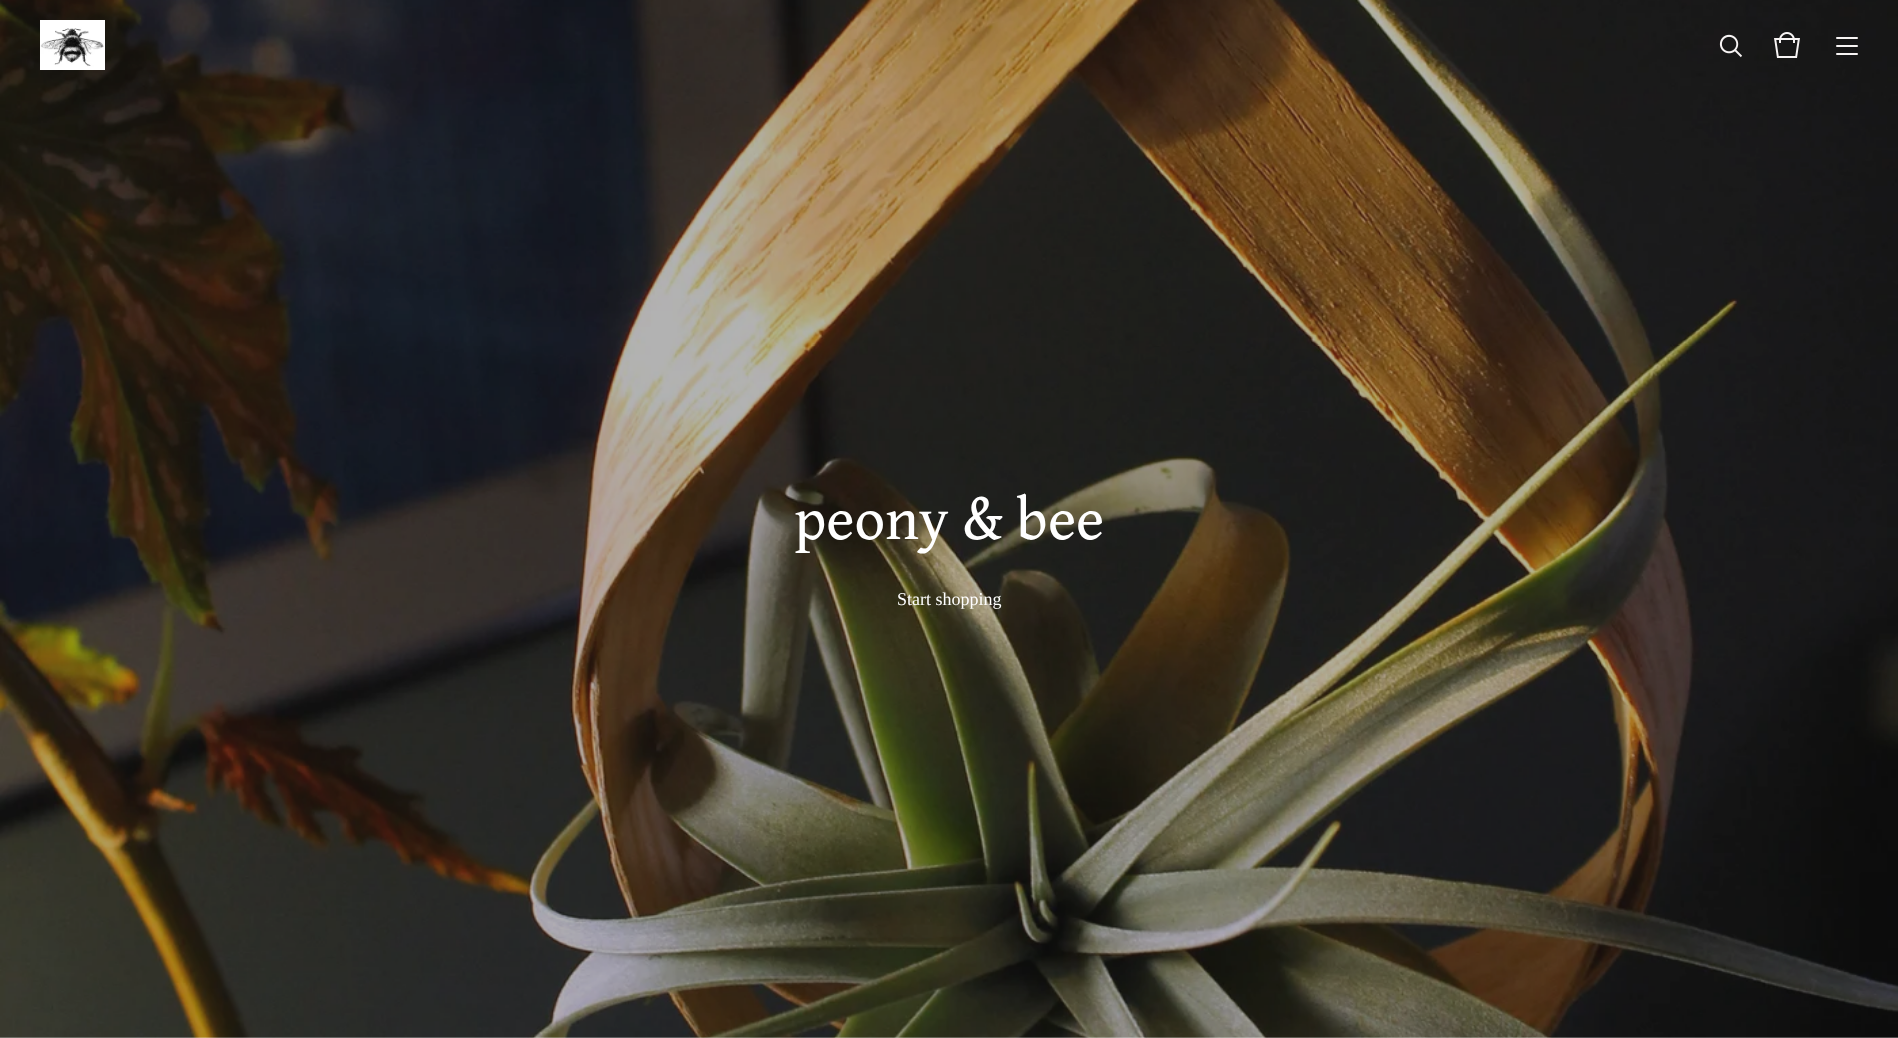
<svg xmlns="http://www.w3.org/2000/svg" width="1898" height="1038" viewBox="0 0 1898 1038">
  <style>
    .t1 { font: 60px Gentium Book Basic; fill: #fff; }
    .t2 { font: 18px Liberation Serif; fill: #fff; }
  </style>
  <rect width="100%" height="100%" fill="#fff"/>
  <image x="0" y="0" width="1898" height="1038" href="images/4.png"/>
  <image x="40" y="20" width="65" height="50" href="images/1.png"/>
  <image x="1719" y="34" width="23" height="24" href="images/2.png"/>
  <image x="1774" y="32" width="26" height="26" href="images/3.png"/>
  <rect x="1836" y="37" width="22" height="2" rx="1" fill="#f7f4f4"/>
  <rect x="1836" y="45" width="22" height="2" rx="1" fill="#f7f4f4"/>
  <rect x="1836" y="53" width="22" height="2" rx="1" fill="#f7f4f4"/>
  <text x="794" y="539" class="t1">peony &amp; bee</text>
  <text x="897" y="605" class="t2">Start shopping</text>
</svg>
